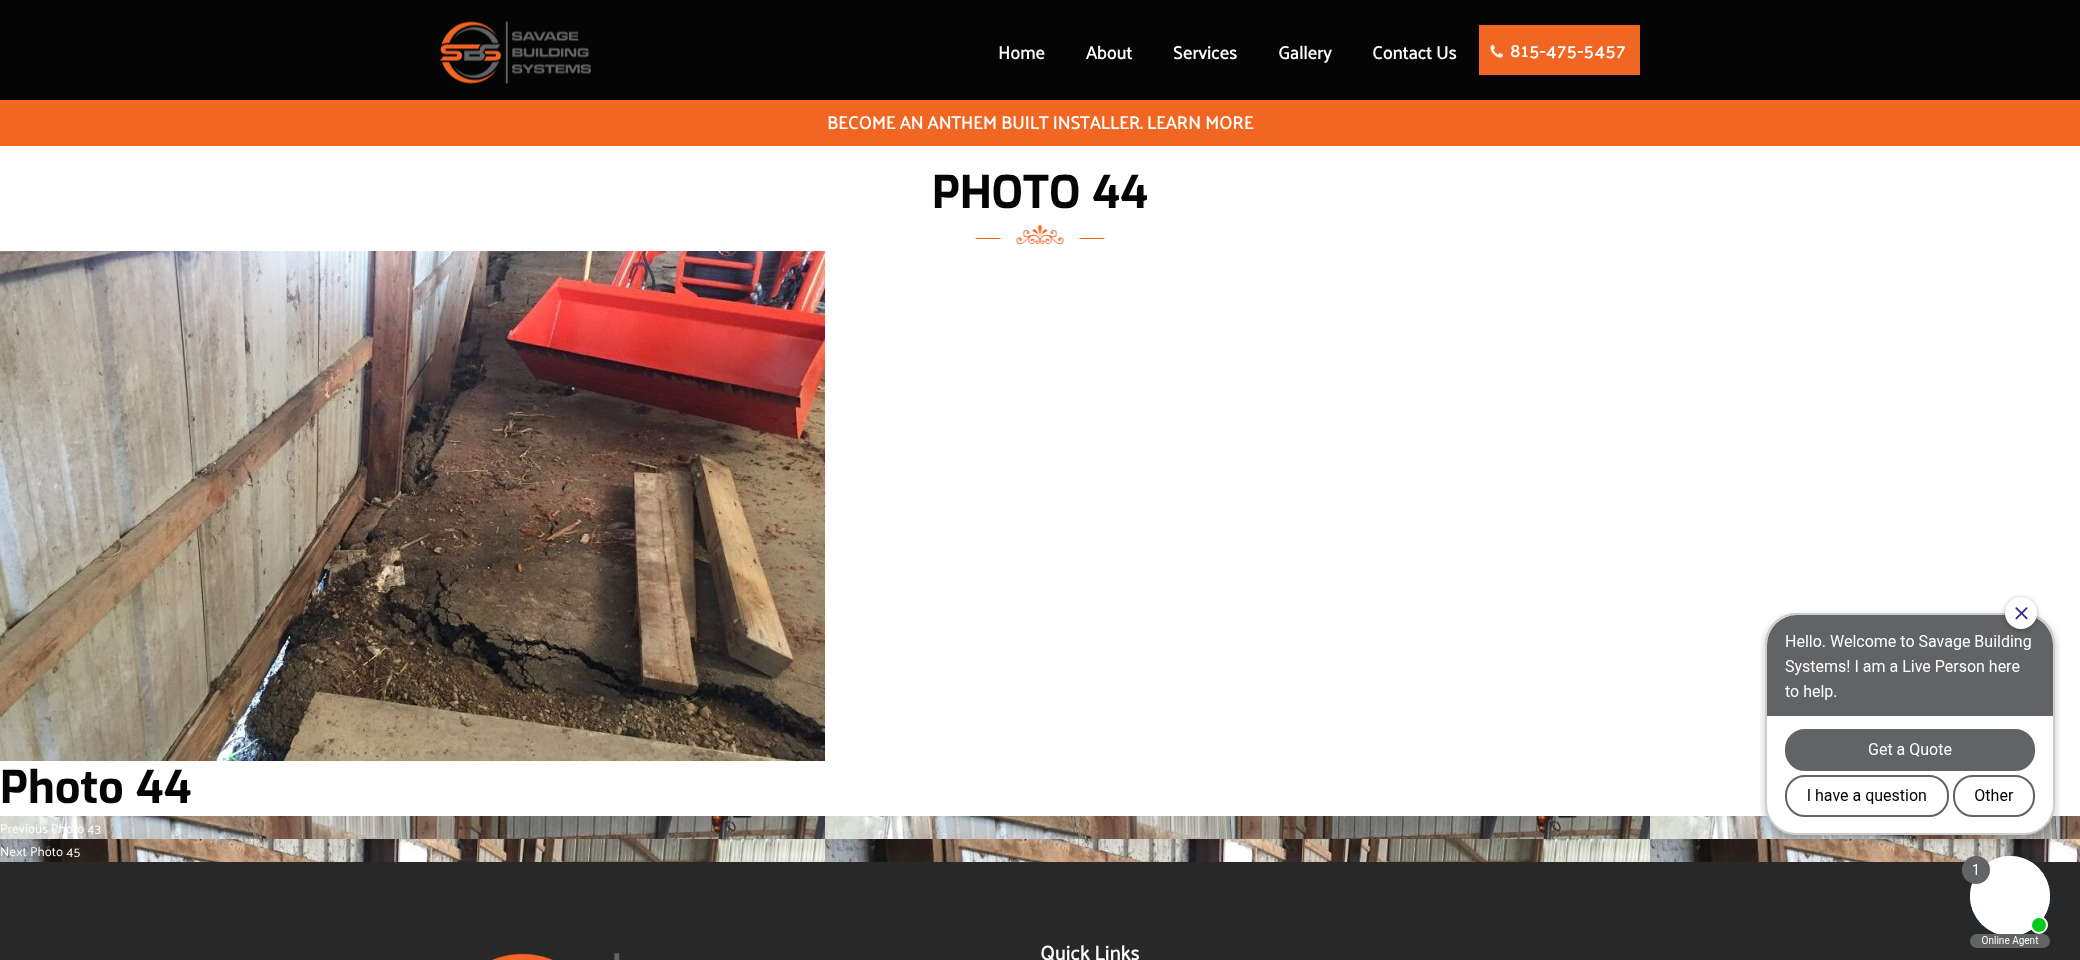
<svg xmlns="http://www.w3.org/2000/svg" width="2080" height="960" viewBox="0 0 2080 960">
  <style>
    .t1 { font: bold 18px Palanquin; fill: #fff; }
    .t2 { font: bold 18px Palanquin; letter-spacing: 1px; fill: #fff; }
    .t3 { font: bold 45px Exo; fill: #050505; }
    .t4 { font: 13px Palanquin; fill: #fff; }
    .t5 { font: bold 20px Palanquin; fill: #fff; }
  </style>
  <rect width="100%" height="100%" fill="#fff"/>
  <rect x="0" y="0" width="2080" height="100" fill="#050505"/>
  <image x="440" y="21" width="151" height="63" href="images/1.png"/>
  <text x="998" y="59" class="t1">Home</text>
  <text x="1086" y="59" class="t1">About</text>
  <text x="1173" y="59" class="t1">Services</text>
  <text x="1278" y="59" class="t1">Gallery</text>
  <text x="1372" y="59" class="t1">Contact Us</text>
  <rect x="1479" y="25" width="161" height="50" fill="#f16622"/>
  <image x="1490" y="44" width="13" height="14" href="images/2.png"/>
  <text x="1510" y="57" class="t2">815-475-5457</text>
  <rect x="0" y="100" width="2080" height="46" fill="#f16622"/>
  <text x="827" y="129" class="t1">BECOME AN ANTHEM BUILT INSTALLER. LEARN MORE</text>
  <text x="932" y="208" class="t3">PHOTO 44</text>
  <image x="975" y="225" width="130" height="19" href="images/3.png"/>
  <image x="0" y="251" width="825" height="510" href="images/4.png"/>
  <text x="0" y="803" class="t3">Photo 44</text>
  <image x="0" y="816" width="2080" height="23" href="images/5.png"/>
  <text x="0" y="833" class="t4">Previous Photo 43</text>
  <image x="0" y="839" width="2080" height="23" href="images/6.png"/>
  <text x="0" y="856" class="t4">Next Photo 45</text>
  <rect x="0" y="862" width="2080" height="98" fill="#282828"/>
  <image x="1760" y="595" width="300" height="353" href="images/7.png"/>
  <image x="492" y="953" width="128" height="7" href="images/8.png"/>
  <text x="1040" y="960" class="t5">Quick Links</text>
</svg>
